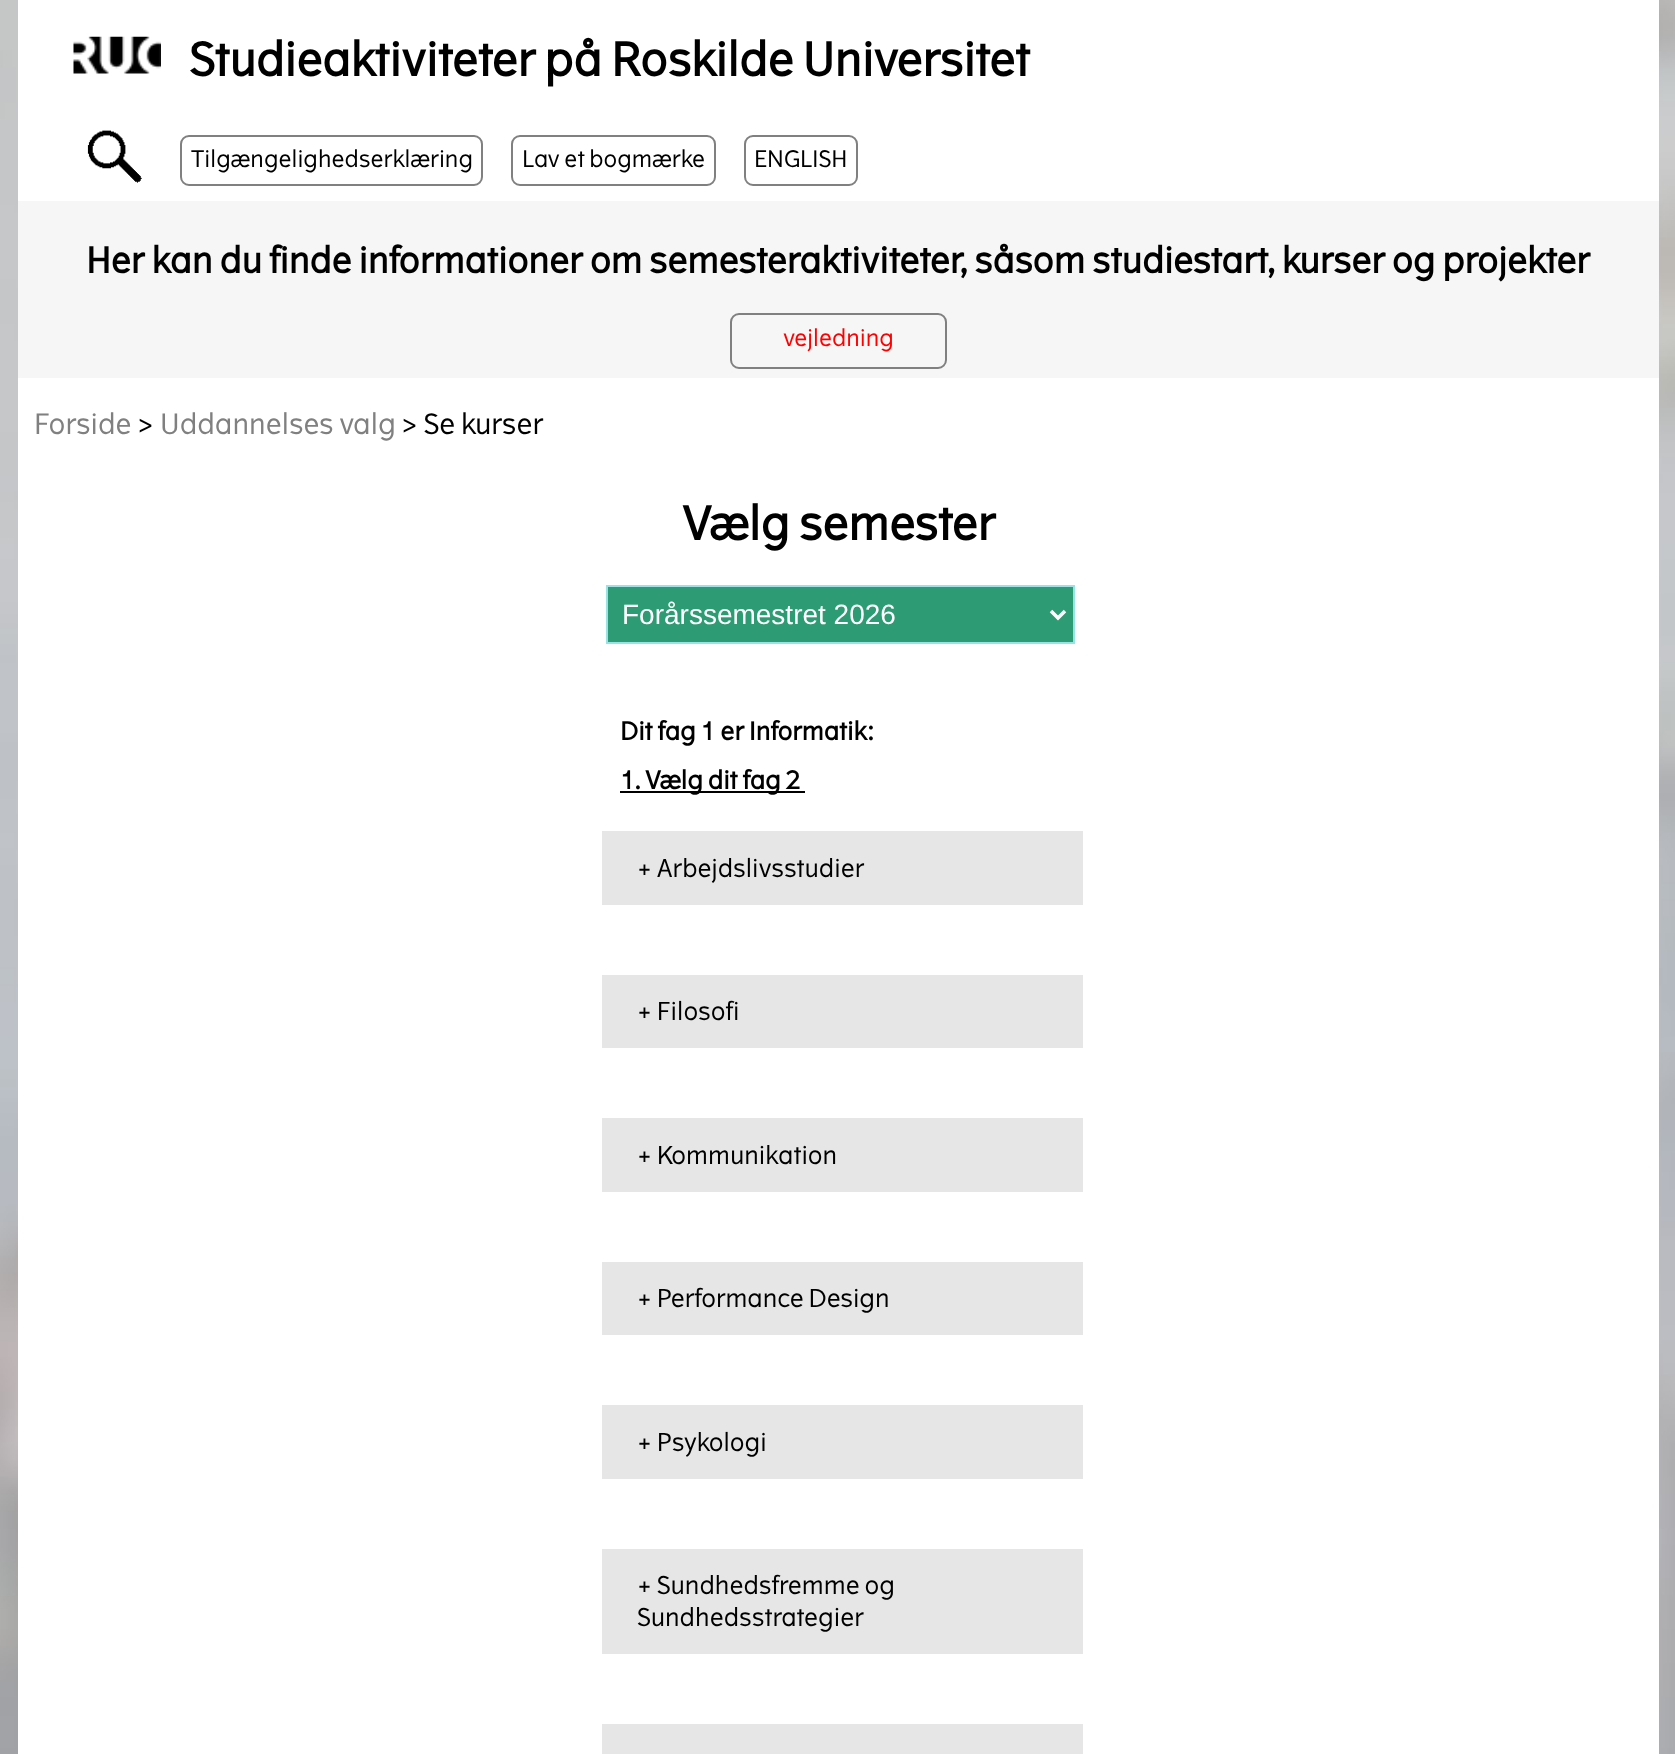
<svg xmlns="http://www.w3.org/2000/svg" width="1675" height="1754" viewBox="0 0 1675 1754">
  <style>
    .t1 { font: bold 45.5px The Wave; fill: #000; }
    .t2 { font: 22.75px The Wave; fill: #000; }
    .t3 { font: bold 35px The Wave; fill: #000; }
    .t4 { font: 22.75px The Wave; fill: #f00; }
    .t5 { font: 28px The Wave; fill: #808080; }
    .t6 { font: 28px The Wave; fill: #000; }
    .t7 { font: 28px Liberation Sans; fill: #fff; }
    .t8 { font: bold 24.5px The Wave; fill: #000; }
    .t9 { font: 24.5px The Wave; fill: #000; }
  </style>
  <rect width="100%" height="100%" fill="#fff"/>
  <image x="0" y="0" width="1675" height="1754" href="images/1.png"/>
  <rect x="18" y="0" width="1641" height="1754" fill="#fff"/>
  <image x="73" y="36" width="88" height="38" href="images/2.png"/>
  <text x="189" y="76" class="t1">Studieaktiviteter på Roskilde Universitet</text>
  <image x="87" y="130" width="55" height="53" href="images/3.png"/>
  <rect x="181" y="136" width="301" height="49" rx="8" fill="none" stroke="#808080" stroke-width="2"/>
  <text x="191" y="167" class="t2">Tilgængelighedserklæring</text>
  <rect x="512" y="136" width="203" height="49" rx="8" fill="none" stroke="#808080" stroke-width="2"/>
  <text x="522" y="167" class="t2">Lav et bogmærke</text>
  <rect x="745" y="136" width="112" height="49" rx="8" fill="none" stroke="#808080" stroke-width="2"/>
  <text x="754" y="167" class="t2">ENGLISH</text>
  <rect x="18" y="201" width="1641" height="177" fill="#f6f6f6"/>
  <text x="86" y="273" class="t3">Her kan du finde informationer om semesteraktiviteter, såsom studiestart, kurser og projekter</text>
  <rect x="731" y="314" width="215" height="54" rx="8" fill="none" stroke="#808080" stroke-width="2"/>
  <text x="783" y="346" class="t4">vejledning</text>
  <text x="34" y="434" class="t5">Forside</text>
  <text x="137" y="434" class="t6">&gt;</text>
  <text x="160" y="434" class="t5">Uddannelses valg</text>
  <text x="401" y="434" class="t6">&gt; Se kurser</text>
  <text x="682" y="540" class="t1">Vælg semester</text>
  <rect x="607" y="586" width="467" height="57" fill="#2d9b73" stroke="#9be2e5" stroke-width="2"/>
  <path d="M1051 611L1058 618L1065 611" fill="none" stroke="#fff" stroke-width="3.5"/>
  <text x="622" y="624" class="t7">Forårssemestret 2026</text>
  <text x="620" y="740" class="t8">Dit fag 1 er Informatik:</text>
  <rect x="620" y="791" width="185" height="2" fill="#000"/>
  <text x="620" y="789" class="t8">1. Vælg dit fag 2</text>
  <rect x="602" y="831" width="481" height="74" fill="#e6e6e6"/>
  <text x="637" y="877" class="t9">+ Arbejdslivsstudier</text>
  <rect x="602" y="975" width="481" height="73" fill="#e6e6e6"/>
  <text x="637" y="1020" class="t9">+ Filosofi</text>
  <rect x="602" y="1118" width="481" height="74" fill="#e6e6e6"/>
  <text x="637" y="1164" class="t9">+ Kommunikation</text>
  <rect x="602" y="1262" width="481" height="73" fill="#e6e6e6"/>
  <text x="637" y="1307" class="t9">+ Performance Design</text>
  <rect x="602" y="1405" width="481" height="74" fill="#e6e6e6"/>
  <text x="637" y="1451" class="t9">+ Psykologi</text>
  <rect x="602" y="1549" width="481" height="105" fill="#e6e6e6"/>
  <text x="637" y="1594" class="t9">+ Sundhedsfremme og</text>
  <text x="637" y="1626" class="t9">Sundhedsstrategier</text>
  <rect x="602" y="1724" width="481" height="30" fill="#e6e6e6"/>
</svg>
